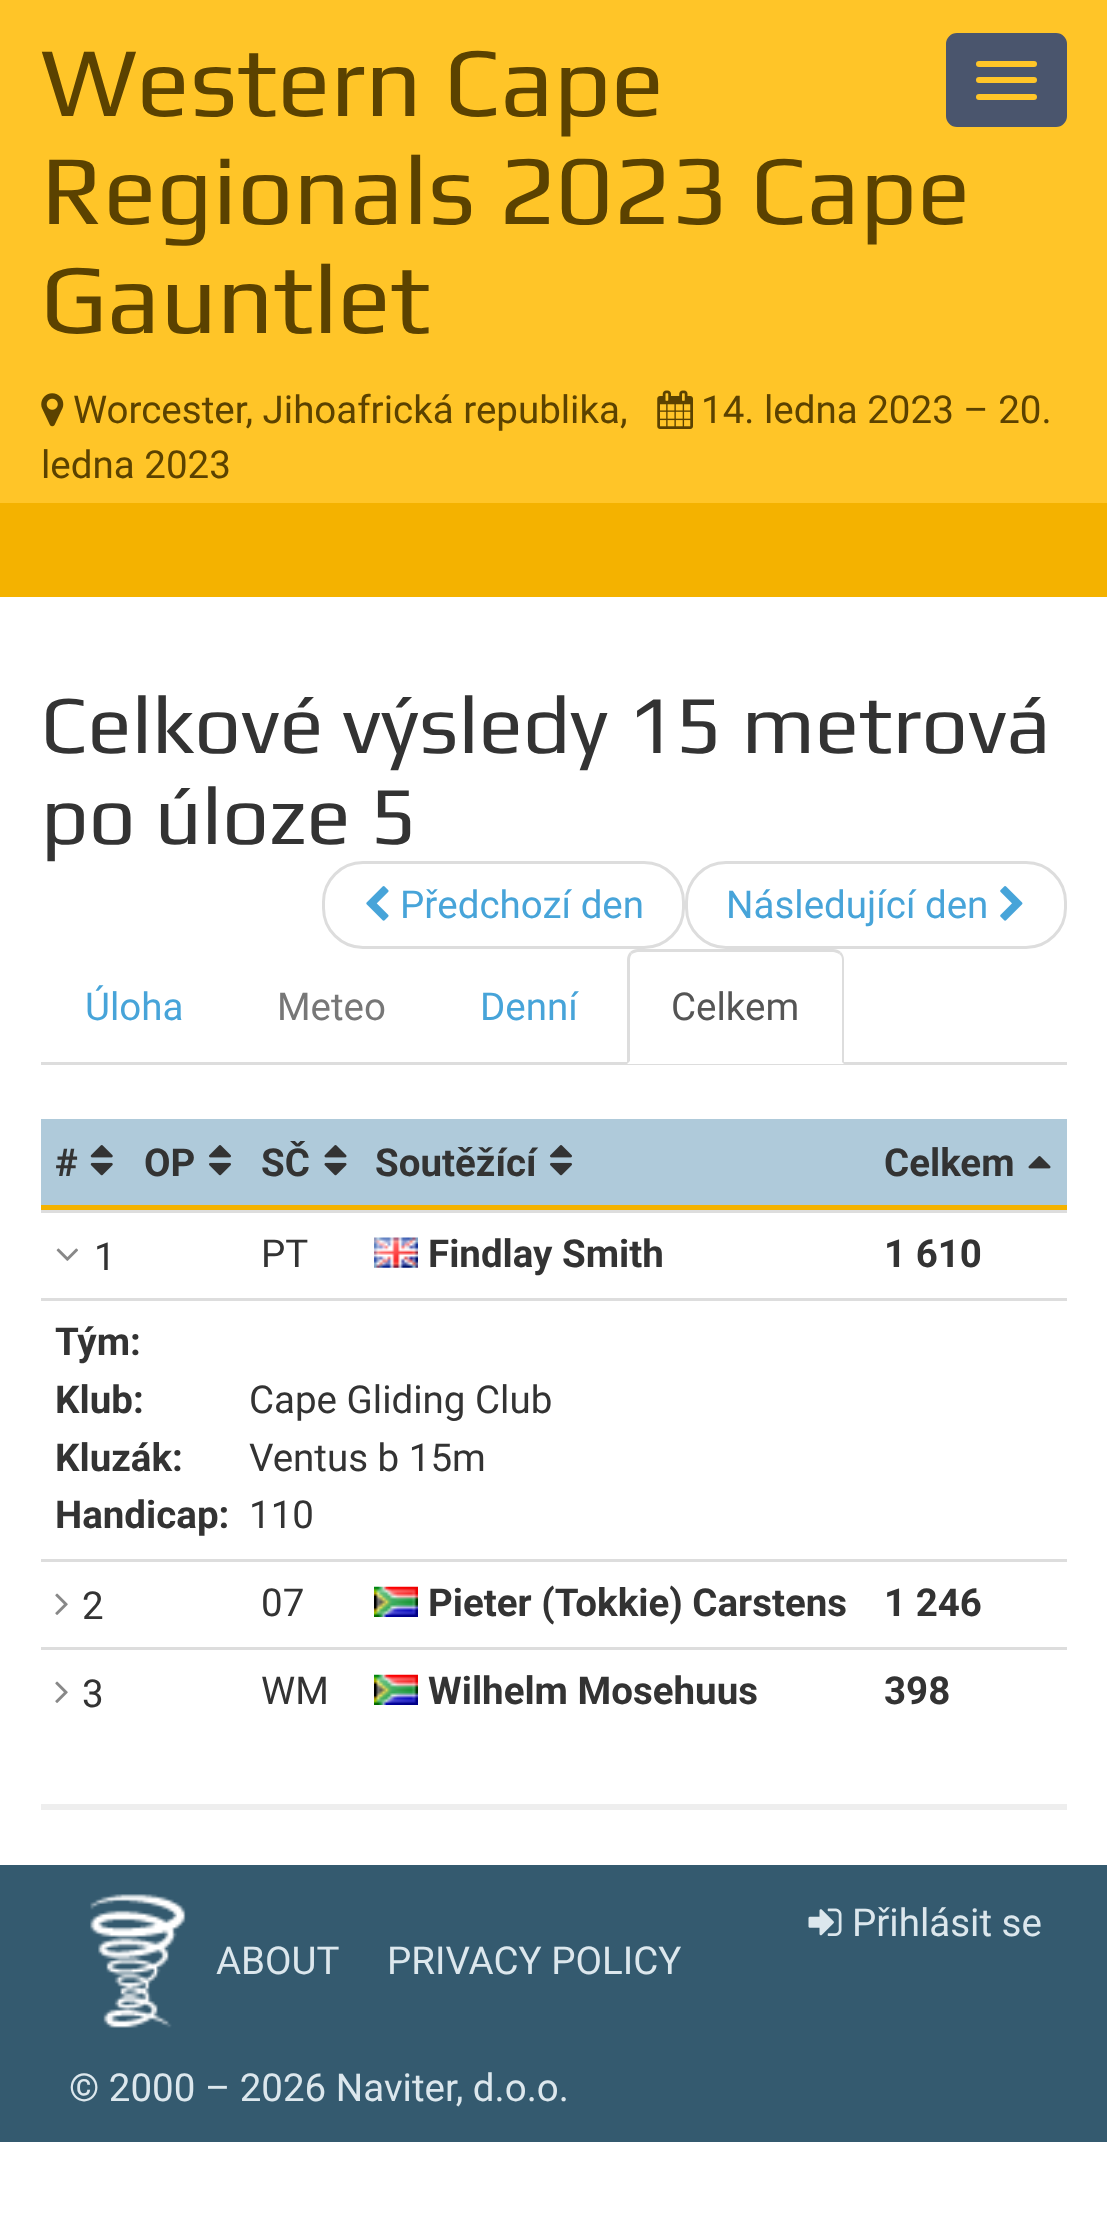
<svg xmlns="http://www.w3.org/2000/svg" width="1107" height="2220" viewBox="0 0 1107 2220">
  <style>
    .t1 { font: 99px Play; fill: #5b4200; }
    .t2 { font: 38.5px Roboto; fill: #5b4200; }
    .t3 { font: 82.5px Play; fill: #333; }
    .t4 { font: 38.5px Roboto; fill: #47a4d9; }
    .t5 { font: 38.5px Roboto; fill: #777; }
    .t6 { font: 38.5px Roboto; fill: #555; }
    .t7 { font: bold 38.5px Roboto; fill: #333; }
    .t8 { font: 38.5px Roboto; fill: #333; }
    .t9 { font: 38.5px Roboto; fill: #dce7ed; }
  </style>
  <rect width="100%" height="100%" fill="#fff"/>
  <rect x="0" y="0" width="1107" height="503" fill="#ffc528"/>
  <text x="41" y="116" class="t1">Western Cape</text>
  <text x="41" y="224" class="t1">Regionals 2023 Cape</text>
  <text x="41" y="333" class="t1">Gauntlet</text>
  <rect x="947.5" y="34.5" width="118" height="91" rx="9.5" fill="#4a556d" stroke="#4a556d" stroke-width="3"/>
  <rect x="976" y="61" width="61" height="6" rx="3" fill="#ffc528"/>
  <rect x="976" y="77" width="61" height="6" rx="3" fill="#ffc528"/>
  <rect x="976" y="94" width="61" height="6" rx="3" fill="#ffc528"/>
  <image x="41" y="393" width="23" height="34" href="images/1.png"/>
  <text x="73" y="423" class="t2">Worcester, Jihoafrická republika,</text>
  <image x="657" y="390" width="36" height="39" href="images/2.png"/>
  <text x="701" y="423" class="t2">14. ledna 2023 – 20.</text>
  <text x="41" y="478" class="t2">ledna 2023</text>
  <rect x="0" y="503" width="1107" height="94" fill="#f4b200"/>
  <text x="41" y="753" class="t3">Celkové výsledy 15 metrová</text>
  <text x="41" y="844" class="t3">po úloze 5</text>
  <rect x="323.5" y="862.5" width="360" height="85" rx="39.5" fill="none" stroke="#ddd" stroke-width="3"/>
  <image x="366" y="886" width="23" height="35" href="images/3.png"/>
  <text x="400" y="918" class="t4">Předchozí den</text>
  <rect x="686.5" y="862.5" width="379" height="85" rx="39.5" fill="none" stroke="#ddd" stroke-width="3"/>
  <text x="726" y="918" class="t4">Následující den</text>
  <image x="1000" y="886" width="23" height="35" href="images/4.png"/>
  <rect x="41" y="1062" width="1026" height="3" fill="#ddd"/>
  <text x="85" y="1020" class="t4">Úloha</text>
  <text x="277" y="1020" class="t5">Meteo</text>
  <text x="480" y="1020" class="t4">Denní</text>
  <path d="M638 949H833C839 949 844 954 844 960V1064H627V960C627 954 632 949 638 949Z" fill="#fff"/>
  <path d="M638 949C635 949 632 950 630 952L632 954C634 953 636 952 638 952H833C835 952 837 953 839 954L841 952C839 950 836 949 833 949Z" fill="#ddd"/>
  <path d="M844 1064V960C844 957 843 954 841 952L839 954C841 955 842 957 842 960V1062Z" fill="#ddd"/>
  <path d="M627 960V1064L630 1061V960C630 957 631 955 632 954L630 952C628 954 627 957 627 960Z" fill="#ddd"/>
  <text x="671" y="1020" class="t6">Celkem</text>
  <rect x="41" y="1119" width="1026" height="86" fill="#afcada"/>
  <rect x="41" y="1205" width="1026" height="5" fill="#f4b200"/>
  <text x="55" y="1176" class="t7">#</text>
  <image x="90" y="1145" width="23" height="31" href="images/5.png"/>
  <text x="144" y="1176" class="t7">OP</text>
  <image x="209" y="1145" width="22" height="31" href="images/6.png"/>
  <text x="261" y="1176" class="t7">SČ</text>
  <image x="324" y="1145" width="23" height="31" href="images/7.png"/>
  <text x="375" y="1176" class="t7">Soutěžící</text>
  <image x="550" y="1145" width="22" height="31" href="images/6.png"/>
  <text x="884" y="1176" class="t7">Celkem</text>
  <image x="1028" y="1156" width="23" height="13" href="images/8.png"/>
  <rect x="41" y="1210" width="1026" height="3" fill="#ddd"/>
  <image x="56" y="1248" width="22" height="13" href="images/9.png"/>
  <text x="94" y="1270" class="t8">1</text>
  <text x="261" y="1267" class="t8">PT</text>
  <image x="374" y="1237" width="44" height="31" href="images/10.png"/>
  <text x="428" y="1267" class="t7">Findlay Smith</text>
  <text x="884" y="1267" class="t7">1 610</text>
  <rect x="41" y="1298" width="1026" height="3" fill="#ddd"/>
  <text x="55" y="1355" class="t7">Tým:</text>
  <text x="55" y="1413" class="t7">Klub:</text>
  <text x="249" y="1413" class="t8">Cape Gliding Club</text>
  <text x="55" y="1471" class="t7">Kluzák:</text>
  <text x="249" y="1471" class="t8">Ventus b 15m</text>
  <text x="55" y="1528" class="t7">Handicap:</text>
  <text x="249" y="1528" class="t8">110</text>
  <rect x="41" y="1559" width="1026" height="3" fill="#ddd"/>
  <image x="55" y="1593" width="13" height="22" href="images/11.png"/>
  <text x="82" y="1619" class="t8">2</text>
  <text x="261" y="1616" class="t8">07</text>
  <image x="374" y="1586" width="44" height="31" href="images/12.png"/>
  <text x="428" y="1616" class="t7">Pieter (Tokkie) Carstens</text>
  <text x="884" y="1616" class="t7">1 246</text>
  <rect x="41" y="1647" width="1026" height="3" fill="#ddd"/>
  <image x="55" y="1681" width="13" height="22" href="images/11.png"/>
  <text x="82" y="1707" class="t8">3</text>
  <text x="261" y="1704" class="t8">WM</text>
  <image x="374" y="1674" width="44" height="31" href="images/12.png"/>
  <text x="428" y="1704" class="t7">Wilhelm Mosehuus</text>
  <text x="884" y="1704" class="t7">398</text>
  <rect x="41" y="1804" width="1026" height="6" fill="#eee"/>
  <rect x="0" y="1865" width="1107" height="277" fill="#345a6f"/>
  <image x="808" y="1908" width="34" height="28" href="images/13.png"/>
  <text x="852" y="1936" class="t9">Přihlásit se</text>
  <image x="90" y="1894" width="96" height="134" href="images/14.png"/>
  <text x="216" y="1974" class="t9">ABOUT</text>
  <text x="387" y="1974" class="t9">PRIVACY POLICY</text>
  <text x="69" y="2101" class="t9">© 2000 – 2026 Naviter, d.o.o.</text>
</svg>
